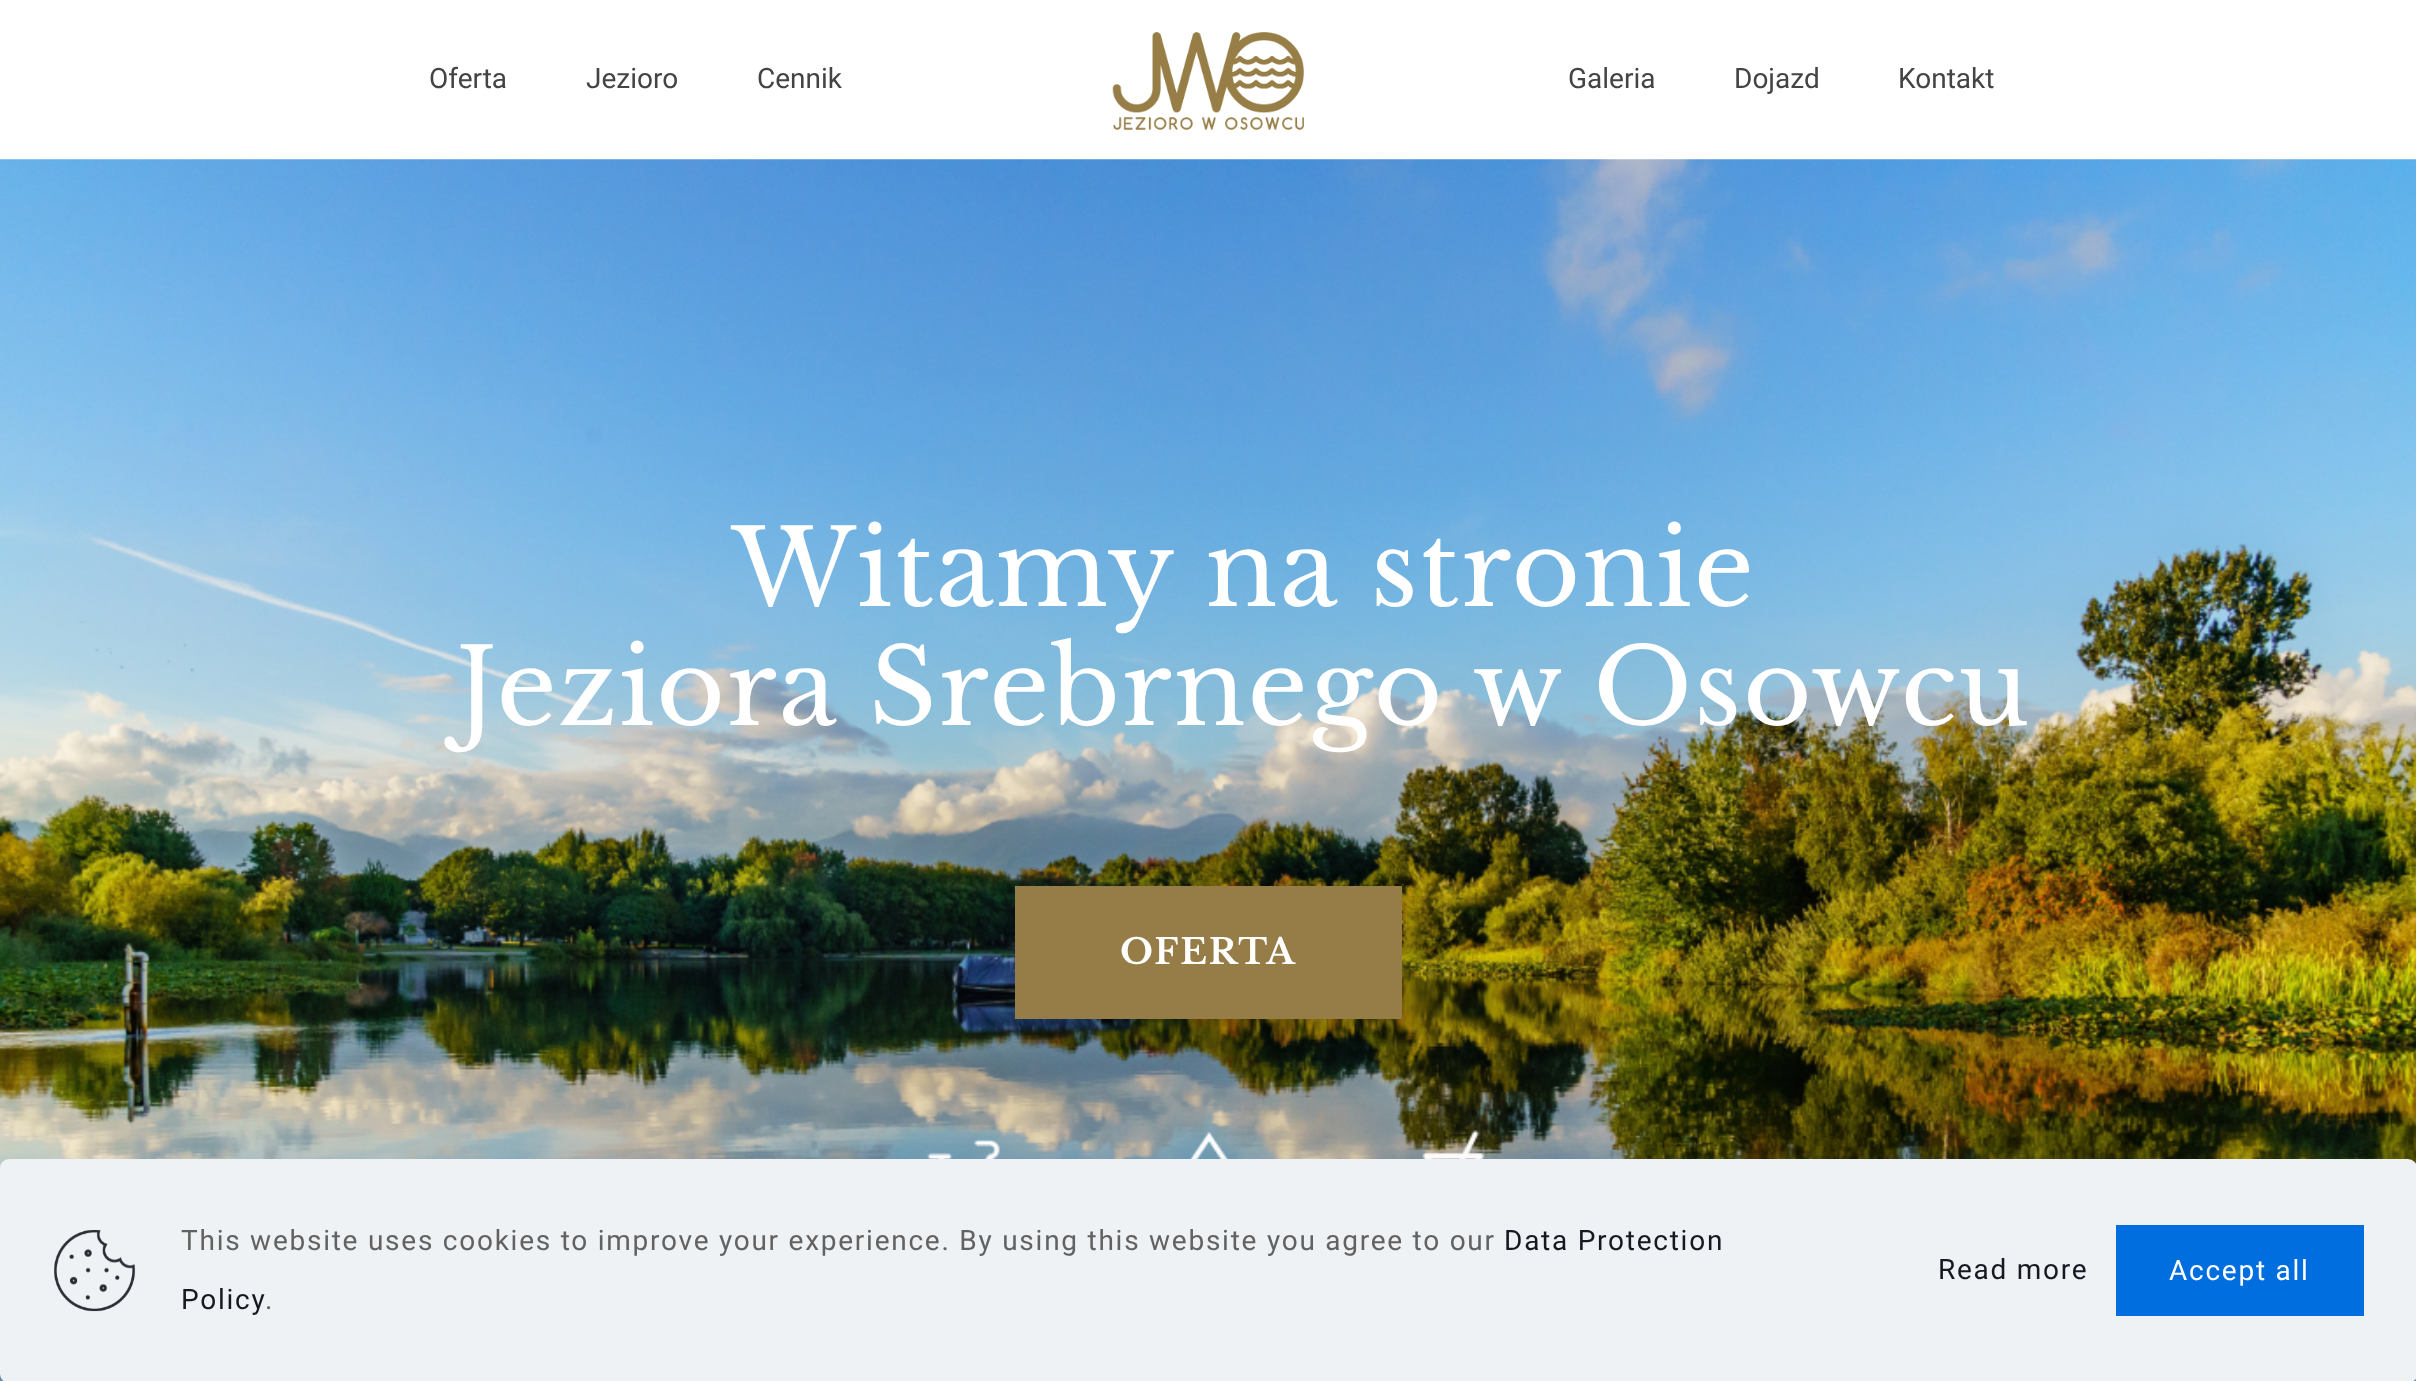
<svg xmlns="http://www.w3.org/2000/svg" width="2416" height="1381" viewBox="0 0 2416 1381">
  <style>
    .t1 { font: 28px Roboto; fill: #444; }
    .t2 { font: 105px Libre Baskerville; letter-spacing: 1.75px; fill: #fff; }
    .t3 { font: bold 35px Libre Baskerville; letter-spacing: 1.75px; fill: #fff; }
    .t4 { font: 28px Roboto; letter-spacing: 1.75px; fill: #626262; }
    .t5 { font: 28px Roboto; letter-spacing: 1.75px; fill: #161922; }
    .t6 { font: 28px Roboto; letter-spacing: 1.75px; fill: #fff; }
  </style>
  <rect width="100%" height="100%" fill="#fff"/>
  <image x="1112" y="32" width="192" height="98" href="images/1.png"/>
  <text x="429" y="88" class="t1">Oferta</text>
  <text x="586" y="88" class="t1">Jezioro</text>
  <text x="757" y="88" class="t1">Cennik</text>
  <text x="1568" y="88" class="t1">Galeria</text>
  <text x="1734" y="88" class="t1">Dojazd</text>
  <text x="1898" y="88" class="t1">Kontakt</text>
  <image x="0" y="159" width="2416" height="1222" href="images/2.png"/>
  <text x="732" y="606" class="t2">Witamy na stronie</text>
  <text x="456" y="725" class="t2">Jeziora Srebrnego w Osowcu</text>
  <rect x="1015" y="886" width="387" height="133" fill="#967d48"/>
  <text x="1120" y="964" class="t3">OFERTA</text>
  <image x="927" y="1139" width="73" height="20" href="images/3.png"/>
  <image x="1189" y="1132" width="40" height="27" href="images/4.png"/>
  <image x="1422" y="1130" width="63" height="29" href="images/5.png"/>
  <rect x="0" y="1185" width="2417" height="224" rx="9" fill="#01072721" filter="blur(26px)"/>
  <rect x="0" y="1159" width="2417" height="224" rx="9" fill="#eef2f5"/>
  <image x="54" y="1230" width="82" height="82" href="images/6.png"/>
  <text x="181" y="1250" class="t4">This website uses cookies to improve your experience. By using this website you agree to our</text>
  <text x="1504" y="1250" class="t5">Data Protection</text>
  <text x="181" y="1309" class="t5">Policy</text>
  <text x="265" y="1309" class="t4">.</text>
  <text x="1938" y="1279" class="t5">Read more</text>
  <rect x="2116" y="1225" width="248" height="91" fill="#006edf"/>
  <text x="2169" y="1280" class="t6">Accept all</text>
</svg>
